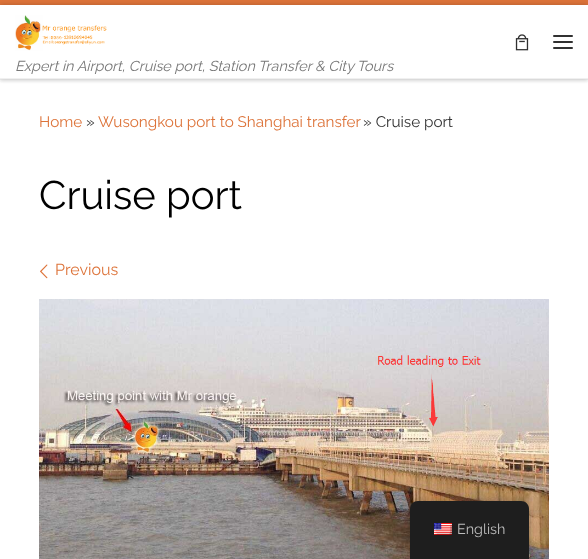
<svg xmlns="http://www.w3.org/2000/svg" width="588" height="559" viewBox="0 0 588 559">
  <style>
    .t1 { font: italic 100 14.4px Raleway; fill: #777; }
    .t2 { font: 100 15.25px Raleway; fill: #dd7339; }
    .t3 { font: 100 15.25px Raleway; fill: #333; }
    .t4 { font: 100 40px Raleway; fill: #000; }
    .t5 { font: 100 16px Raleway; fill: #dd7339; }
    .t6 { font: 100 14.4px Raleway; fill: #bdbdbd; }
  </style>
  <defs>
    <clipPath id="clip1"><rect x="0" y="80" width="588" height="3"/></clipPath>
    <clipPath id="clip2"><path d="M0 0H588V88H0ZM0 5H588V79H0Z" clip-rule="evenodd"/></clipPath>
  </defs>
  <rect width="100%" height="100%" fill="#fff"/>
  <g clip-path="url(#clip1)">
    <rect x="0" y="2" width="588" height="80" fill="#66666614" filter="blur(1px)"/>
  </g>
  <rect x="0" y="0" width="588" height="5" fill="#dd7339"/>
  <rect x="0" y="79" width="588" height="1" fill="#efefef"/>
  <g clip-path="url(#clip2)">
    <rect x="0" y="5" width="588" height="74" fill="#00000033" filter="blur(2.5px)"/>
  </g>
  <image x="515" y="34" width="14" height="17" href="images/1.png"/>
  <rect x="553" y="35" width="20" height="2" rx="1" fill="#313131"/>
  <rect x="553" y="41" width="20" height="2" rx="1" fill="#313131"/>
  <rect x="553" y="47" width="20" height="2" rx="1" fill="#313131"/>
  <image x="15" y="15" width="92" height="36" href="images/2.png"/>
  <text x="15" y="71" class="t1">Expert in Airport, Cruise port, Station Transfer &amp; City Tours</text>
  <rect x="0" y="78" width="588" height="1" fill="#f0f0f0"/>
  <text x="39" y="127" class="t2">Home</text>
  <text x="86" y="127" class="t3">»</text>
  <text x="98" y="127" class="t2">Wusongkou port to Shanghai transfer</text>
  <text x="363" y="127" class="t3">» Cruise port</text>
  <text x="39" y="209" class="t4">Cruise port</text>
  <image x="40" y="264" width="8" height="15" href="images/3.png"/>
  <text x="55" y="275" class="t5">Previous</text>
  <image x="39" y="299" width="510" height="260" href="images/4.png"/>
  <rect x="410" y="501" width="119" height="58" rx="8" fill="#00000040" filter="blur(4px)"/>
  <path d="M418 501H521C525.5 501 529 504.5 529 509V559H410V509C410 504.5 413.5 501 418 501Z" fill="#1e1e1e"/>
  <image x="434" y="523" width="18" height="12" href="images/5.png"/>
  <text x="457" y="534" class="t6">English</text>
</svg>
